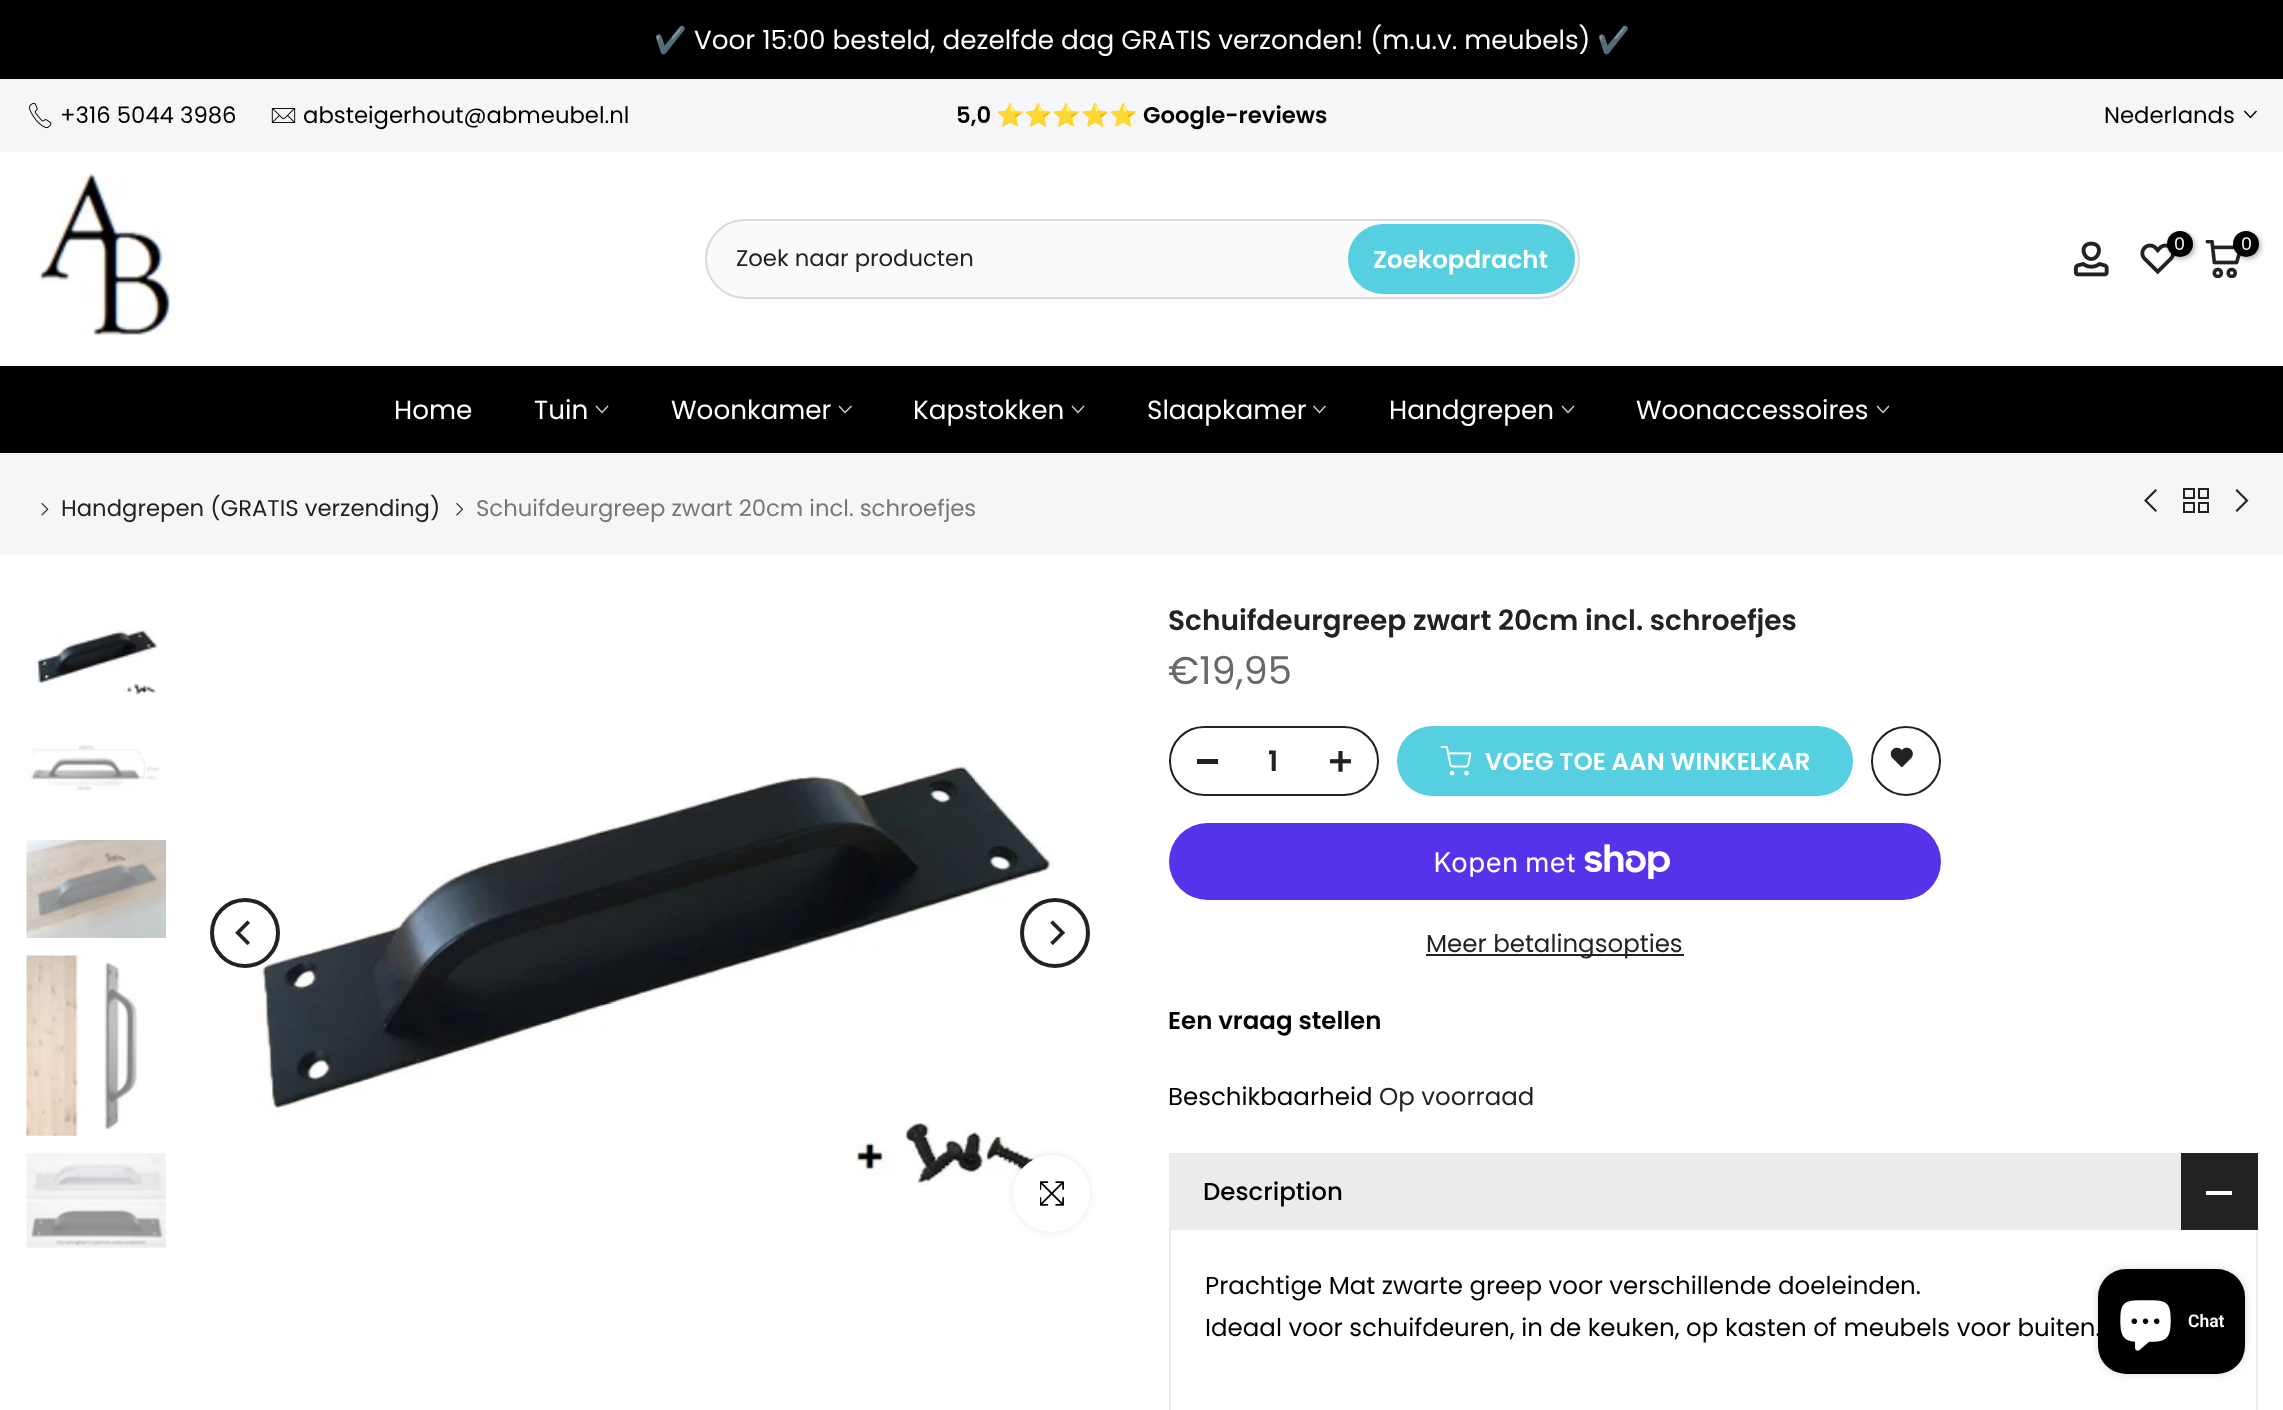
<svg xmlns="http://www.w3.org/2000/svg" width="2283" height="1410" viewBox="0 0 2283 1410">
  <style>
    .t1 { font: 26.25px Noto Color Emoji; fill: #fff; }
    .t2 { font: 26.25px Poppins; fill: #fff; }
    .t3 { font: 22.75px Poppins; fill: #000; }
    .t4 { font: 600 22.75px Poppins; fill: #000; }
    .t5 { font: bold 22.75px Noto Color Emoji; fill: #000; }
    .t6 { font: 17.5px Poppins; fill: #fff; }
    .t7 { font: 22.75px Poppins; fill: #222; }
    .t8 { font: 600 24.5px Poppins; fill: #fff; }
    .t9 { font: 22.75px Poppins; fill: #777; }
    .t10 { font: 600 28px Poppins; fill: #222; }
    .t11 { font: 38.5px Poppins; fill: #696969; }
    .t12 { font: 28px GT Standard; fill: #fff; }
    .t13 { font: 24.5px Poppins; fill: #222; }
    .t14 { font: 600 24.5px Poppins; fill: #000; }
    .t15 { font: 24.5px Poppins; fill: #000; }
    .t16 { font: 500 24.5px Poppins; fill: #000; }
    .t17 { font: 600 17.5px Roboto; fill: #fff; }
  </style>
  <rect width="100%" height="100%" fill="#fff"/>
  <rect x="0" y="0" width="2283" height="79" fill="#000"/>
  <text x="654" y="49" class="t1">✔️</text>
  <text x="694" y="49" class="t2">Voor 15:00 besteld, dezelfde dag GRATIS verzonden! (m.u.v. meubels)</text>
  <text x="1597" y="49" class="t1">✔️</text>
  <rect x="0" y="79" width="2283" height="73" fill="#f6f6f8"/>
  <image x="29" y="102" width="23" height="27" href="images/1.png"/>
  <text x="60" y="123" class="t3">+316 5044 3986</text>
  <image x="271" y="108" width="25" height="15" href="images/2.png"/>
  <text x="303" y="123" class="t3">absteigerhout@abmeubel.nl</text>
  <text x="956" y="123" class="t4">5,0</text>
  <text x="996" y="123" class="t5">⭐⭐⭐⭐⭐</text>
  <text x="1143" y="123" class="t4">Google-reviews</text>
  <text x="2104" y="123" class="t3">Nederlands</text>
  <path d="M2256 111.5L2250.5 117.5L2245 111.5" fill="none" stroke="#000" stroke-width="1.5" stroke-linecap="square"/>
  <image x="38" y="173" width="137" height="163" href="images/3.png"/>
  <image x="2073" y="241" width="36" height="36" href="images/4.png"/>
  <image x="2140" y="243" width="35" height="32" href="images/5.png"/>
  <rect x="2168" y="233" width="27" height="26" rx="13" fill="#0000004d" filter="blur(2.5px)"/>
  <circle cx="2180" cy="244" r="13" fill="#000"/>
  <text x="2174" y="250" class="t6">0</text>
  <image x="2205" y="240" width="36" height="38" href="images/6.png"/>
  <rect x="2235" y="233" width="26" height="26" rx="13" fill="#0000004d" filter="blur(2.5px)"/>
  <circle cx="2246" cy="244" r="13" fill="#000"/>
  <text x="2241" y="250" class="t6">0</text>
  <rect x="706" y="220" width="873" height="78" rx="39" fill="#fafafa" stroke="#dadada" stroke-width="2"/>
  <text x="736" y="266" class="t7">Zoek naar producten</text>
  <rect x="1348" y="224" width="227" height="70" rx="35" fill="#56cfe1"/>
  <text x="1373" y="268" class="t8">Zoekopdracht</text>
  <rect x="0" y="366" width="2283" height="87" fill="#000"/>
  <text x="394" y="419" class="t2">Home</text>
  <text x="534" y="419" class="t2">Tuin</text>
  <path d="M607.5 406.5L602 412.5L596.5 406.5" fill="none" stroke="#ccc" stroke-width="1.5" stroke-linecap="square"/>
  <text x="671" y="419" class="t2">Woonkamer</text>
  <path d="M851 406.5L845 412.5L839.5 406.5" fill="none" stroke="#ccc" stroke-width="1.5" stroke-linecap="square"/>
  <text x="913" y="419" class="t2">Kapstokken</text>
  <path d="M1083.5 406.5L1078 412.5L1072.5 406.5" fill="none" stroke="#ccc" stroke-width="1.5" stroke-linecap="square"/>
  <text x="1147" y="419" class="t2">Slaapkamer</text>
  <path d="M1325 406.5L1319.5 412.5L1314 406.5" fill="none" stroke="#ccc" stroke-width="1.5" stroke-linecap="square"/>
  <text x="1389" y="419" class="t2">Handgrepen</text>
  <path d="M1573.5 406.5L1568 412.5L1562.5 406.5" fill="none" stroke="#ccc" stroke-width="1.5" stroke-linecap="square"/>
  <text x="1636" y="419" class="t2">Woonaccessoires</text>
  <path d="M1888.5 406.5L1883 412.5L1877.5 406.5" fill="none" stroke="#ccc" stroke-width="1.5" stroke-linecap="square"/>
  <rect x="0" y="453" width="2283" height="102" fill="#f6f6f6"/>
  <image x="41" y="502" width="8" height="14" href="images/7.png"/>
  <text x="61" y="516" class="t7">Handgrepen (GRATIS verzending)</text>
  <image x="456" y="502" width="8" height="14" href="images/8.png"/>
  <text x="476" y="516" class="t9">Schuifdeurgreep zwart 20cm incl. schroefjes</text>
  <path d="M2155.5 489L2144 500.5L2155.5 512L2157 510.5L2147 500.5L2157 490.5Z" fill="#222"/>
  <rect x="2184" y="489" width="10" height="9" fill="none" stroke="#222" stroke-width="2"/>
  <rect x="2199" y="489" width="9" height="9" fill="none" stroke="#222" stroke-width="2"/>
  <rect x="2184" y="503" width="10" height="9" fill="none" stroke="#222" stroke-width="2"/>
  <rect x="2199" y="503" width="9" height="9" fill="none" stroke="#222" stroke-width="2"/>
  <path d="M2237 489L2235.5 490.5L2245.5 500.5L2235.5 510.5L2237 512L2248.5 500.5L2248 500Z" fill="#222"/>
  <image x="33" y="629" width="125" height="68" href="images/9.png"/>
  <image x="30" y="744" width="130" height="47" href="images/10.png"/>
  <image x="26" y="840" width="141" height="98" href="images/11.png"/>
  <image x="26" y="955" width="112" height="181" href="images/12.png"/>
  <image x="26" y="1153" width="140" height="96" href="images/13.png"/>
  <image x="259" y="763" width="795" height="423" href="images/15.png"/>
  <circle cx="245" cy="933" r="33" fill="none" stroke="#222" stroke-width="4"/>
  <image x="235" y="920" width="15" height="25" href="images/14.png"/>
  <circle cx="1055" cy="933" r="33" fill="none" stroke="#222" stroke-width="4"/>
  <image x="1050" y="920" width="16" height="25" href="images/16.png"/>
  <rect x="1013" y="1155" width="77" height="77" rx="38.5" fill="#00000017" filter="blur(4.5px)"/>
  <circle cx="1051.5" cy="1193.5" r="38.5" fill="#fff"/>
  <image x="1040" y="1181" width="24" height="25" href="images/17.png"/>
  <text x="1168" y="630" class="t10">Schuifdeurgreep zwart 20cm incl. schroefjes</text>
  <text x="1168" y="684" class="t11">€19,95</text>
  <rect x="1170" y="727" width="208" height="68" rx="34" fill="none" stroke="#222" stroke-width="2"/>
  <rect x="1197" y="759" width="21" height="5" fill="#222"/>
  <text x="1268" y="771" class="t10">1</text>
  <image x="1330" y="751" width="21" height="21" href="images/18.png"/>
  <rect x="1397" y="726" width="456" height="70" rx="35" fill="#56cfe1"/>
  <image x="1440" y="746" width="32" height="30" href="images/19.png"/>
  <text x="1485" y="770" class="t8">VOEG TOE AAN WINKELKAR</text>
  <circle cx="1906" cy="761" r="34" fill="none" stroke="#222" stroke-width="2"/>
  <image x="1890" y="747" width="23" height="21" href="images/20.png"/>
  <rect x="1169" y="823" width="772" height="77" rx="38.5" fill="#5433eb"/>
  <text x="1433" y="872" class="t12">Kopen met</text>
  <image x="1584" y="844" width="86" height="35" href="images/21.png"/>
  <rect x="1426" y="954" width="258" height="2" fill="#222"/>
  <text x="1426" y="952" class="t13">Meer betalingsopties</text>
  <text x="1168" y="1029" class="t14">Een vraag stellen</text>
  <text x="1168" y="1105" class="t15">Beschikbaarheid</text>
  <text x="1379" y="1105" class="t13">Op voorraad</text>
  <rect x="1169" y="1153" width="1012" height="77" fill="#ebebeb"/>
  <text x="1203" y="1200" class="t16">Description</text>
  <rect x="2181" y="1153" width="77" height="77" fill="#222"/>
  <rect x="2206" y="1191" width="26" height="4" fill="#fff"/>
  <path d="M2258 1230V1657L2256 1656V1230Z" fill="#ebebeb"/>
  <path d="M1169 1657V1230H1171V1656Z" fill="#ebebeb"/>
  <text x="1205" y="1294" class="t15">Prachtige Mat zwarte greep voor verschillende doeleinden.</text>
  <text x="1205" y="1336" class="t15">Ideaal voor schuifdeuren, in de keuken, op kasten of meubels voor buiten.</text>
  <rect x="2098" y="1269" width="147" height="105" rx="28" fill="#00000026" filter="blur(4.5px)"/>
  <rect x="2098" y="1269" width="147" height="105" rx="28" fill="#000"/>
  <image x="2120" y="1300" width="51" height="51" href="images/22.png"/>
  <text x="2188" y="1327" class="t17">Chat</text>
</svg>
